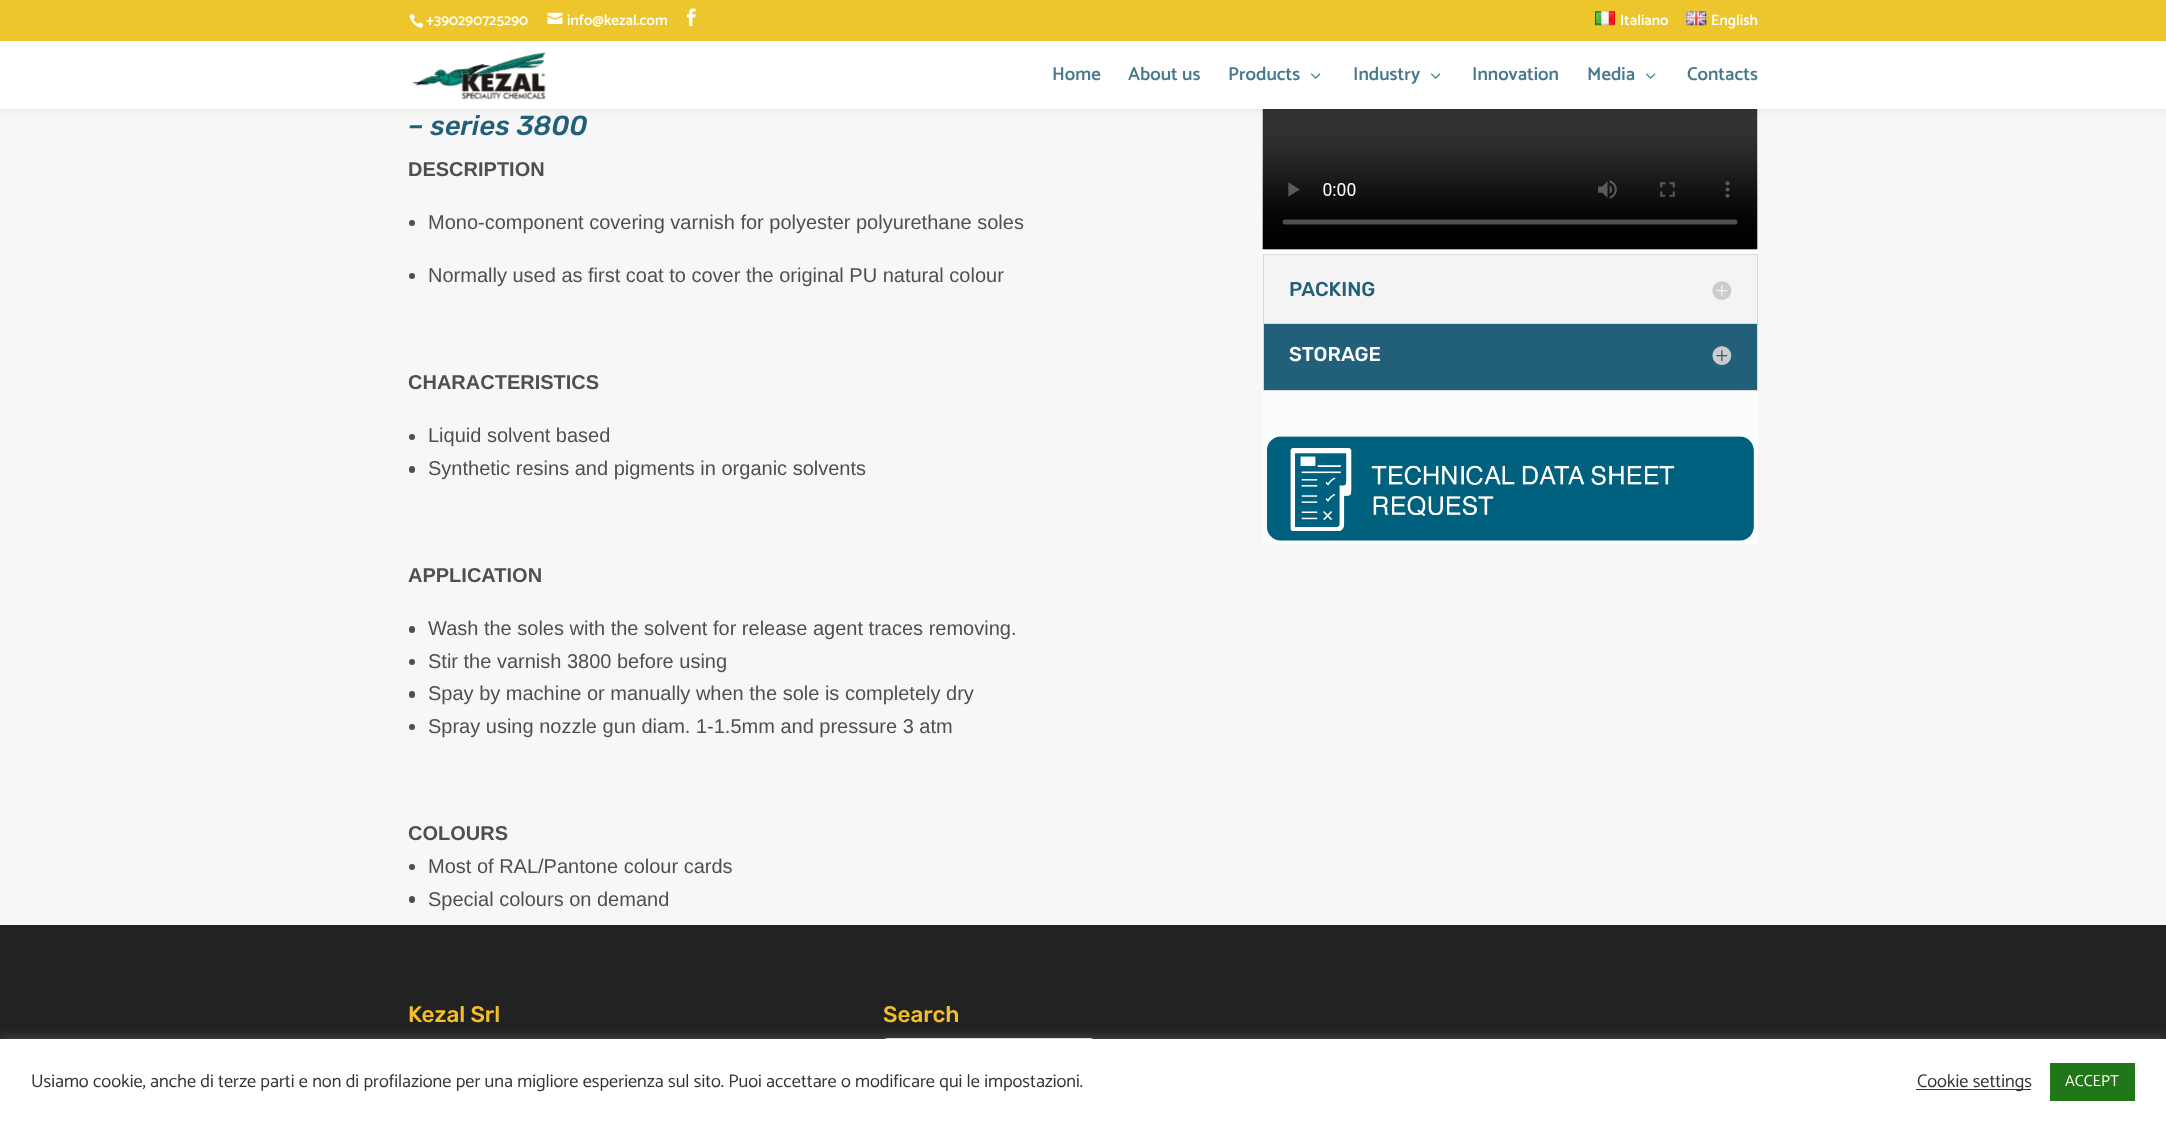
<svg xmlns="http://www.w3.org/2000/svg" width="2166" height="1124" viewBox="0 0 2166 1124">
  <style>
    .t1 { font: 100 15px 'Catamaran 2'; fill: #fff; }
    .t2 { font: 100 18.75px 'Catamaran 2'; fill: #45798e; }
    .t3 { font: italic 300 27.5px Rubik; fill: #225f78; }
    .t4 { font: bold 20px Liberation Sans; fill: #4f4f4f; }
    .t5 { font: 20px Liberation Sans; fill: #4f4f4f; }
    .t6 { font: 300 20px Rubik; fill: #225f78; }
    .t7 { font: 300 20px Rubik; fill: #fff; }
    .t8 { font: 300 22.5px Rubik; fill: #f4be29; }
    .t9 { font: 100 18.33px Catamaran; fill: #333; }
    .t10 { font: 100 16px Catamaran; fill: #fff; }
  </style>
  <rect width="100%" height="100%" fill="#222"/>
  <rect x="0" y="109" width="2166" height="816" fill="#f7f7f7"/>
  <rect x="1263" y="109" width="495" height="435" fill="#fcfcfc"/>
  <image x="1262" y="109" width="496" height="141" href="images/8.png"/>
  <rect x="0" y="41" width="2166" height="68" fill="#0000001a" filter="blur(4.5px)"/>
  <rect x="0" y="0" width="2166" height="41" fill="#edc62d"/>
  <image x="409" y="14" width="15" height="14" href="images/1.png"/>
  <text x="426" y="25" class="t1">+390290725290</text>
  <image x="547" y="12" width="16" height="13" href="images/2.png"/>
  <text x="567" y="25" class="t1">info@kezal.com</text>
  <image x="686" y="8" width="10" height="19" href="images/3.png"/>
  <image x="1595" y="11" width="20" height="15" href="images/4.png"/>
  <text x="1620" y="25" class="t1">Italiano</text>
  <image x="1686" y="11" width="21" height="15" href="images/5.png"/>
  <text x="1711" y="25" class="t1">English</text>
  <rect x="0" y="41" width="2166" height="68" fill="#fff"/>
  <image x="412" y="52" width="134" height="48" href="images/6.png"/>
  <text x="1052" y="80" class="t2">Home</text>
  <text x="1128" y="80" class="t2">About us</text>
  <text x="1228" y="80" class="t2">Products</text>
  <image x="1311" y="73" width="10" height="6" href="images/7.png"/>
  <text x="1353" y="80" class="t2">Industry</text>
  <image x="1431" y="73" width="10" height="6" href="images/7.png"/>
  <text x="1472" y="80" class="t2">Innovation</text>
  <text x="1587" y="80" class="t2">Media</text>
  <image x="1646" y="73" width="10" height="6" href="images/7.png"/>
  <text x="1687" y="80" class="t2">Contacts</text>
  <text x="408" y="135" class="t3">– series 3800</text>
  <text x="408" y="176" class="t4">DESCRIPTION</text>
  <circle cx="412" cy="223" r="3" fill="#4f4f4f"/>
  <text x="428" y="229" class="t5">Mono-component covering varnish for polyester polyurethane soles</text>
  <circle cx="412" cy="276" r="3" fill="#4f4f4f"/>
  <text x="428" y="282" class="t5">Normally used as first coat to cover the original PU natural colour</text>
  <text x="408" y="389" class="t4">CHARACTERISTICS</text>
  <circle cx="412" cy="437" r="3" fill="#4f4f4f"/>
  <text x="428" y="442" class="t5">Liquid solvent based</text>
  <rect x="409" y="466" width="6" height="7" rx="3" fill="#4f4f4f"/>
  <text x="428" y="475" class="t5">Synthetic resins and pigments in organic solvents</text>
  <text x="408" y="582" class="t4">APPLICATION</text>
  <rect x="409" y="626" width="6" height="7" rx="3" fill="#4f4f4f"/>
  <text x="428" y="635" class="t5">Wash the soles with the solvent for release agent traces removing.</text>
  <circle cx="412" cy="662" r="3" fill="#4f4f4f"/>
  <text x="428" y="668" class="t5">Stir the varnish 3800 before using</text>
  <rect x="409" y="691" width="6" height="7" rx="3" fill="#4f4f4f"/>
  <text x="428" y="700" class="t5">Spay by machine or manually when the sole is completely dry</text>
  <circle cx="412" cy="727" r="3" fill="#4f4f4f"/>
  <text x="428" y="733" class="t5">Spray using nozzle gun diam. 1-1.5mm and pressure 3 atm</text>
  <text x="408" y="840" class="t4">COLOURS</text>
  <circle cx="412" cy="867" r="3" fill="#4f4f4f"/>
  <text x="428" y="873" class="t5">Most of RAL/Pantone colour cards</text>
  <rect x="409" y="896" width="6" height="7" rx="3" fill="#4f4f4f"/>
  <text x="428" y="906" class="t5">Special colours on demand</text>
  <rect x="1264" y="255" width="493" height="68" fill="#f4f4f4"/>
  <rect x="1263.5" y="254.5" width="494" height="71" fill="none" stroke="#d9d9d9"/>
  <text x="1289" y="296" class="t6">PACKING</text>
  <image x="1712" y="281" width="20" height="19" href="images/9.png"/>
  <rect x="1263.5" y="323.5" width="494" height="67" fill="#225f78" stroke="#d9d9d9"/>
  <text x="1289" y="361" class="t7">STORAGE</text>
  <image x="1712" y="346" width="20" height="19" href="images/10.png"/>
  <image x="1267" y="436" width="487" height="105" href="images/11.png"/>
  <text x="408" y="1022" class="t8">Kezal Srl</text>
  <text x="883" y="1022" class="t8">Search</text>
  <rect x="883.5" y="1038.5" width="210" height="49" rx="3.5" fill="none" stroke="#ddd"/>
  <path d="M1018.5 1038.5H1090C1092 1038.5 1093.5 1040 1093.5 1042V1084C1093.5 1086 1092 1087.5 1090 1087.5H1018.5Z" fill="none" stroke="#ddd"/>
  <rect x="0" y="1038" width="2166" height="86" fill="#acabab4d" filter="blur(6px)"/>
  <rect x="0" y="1039" width="2166" height="85" fill="#fff"/>
  <text x="31" y="1087" class="t9">Usiamo cookie, anche di terze parti e non di profilazione per una migliore esperienza sul sito. Puoi accettare o modificare qui le impostazioni.</text>
  <rect x="1916" y="1089" width="115" height="1" fill="#333"/>
  <text x="1917" y="1087" class="t9">Cookie settings</text>
  <rect x="2050" y="1063" width="85" height="38" fill="#217717"/>
  <text x="2065" y="1086" class="t10">ACCEPT</text>
</svg>
